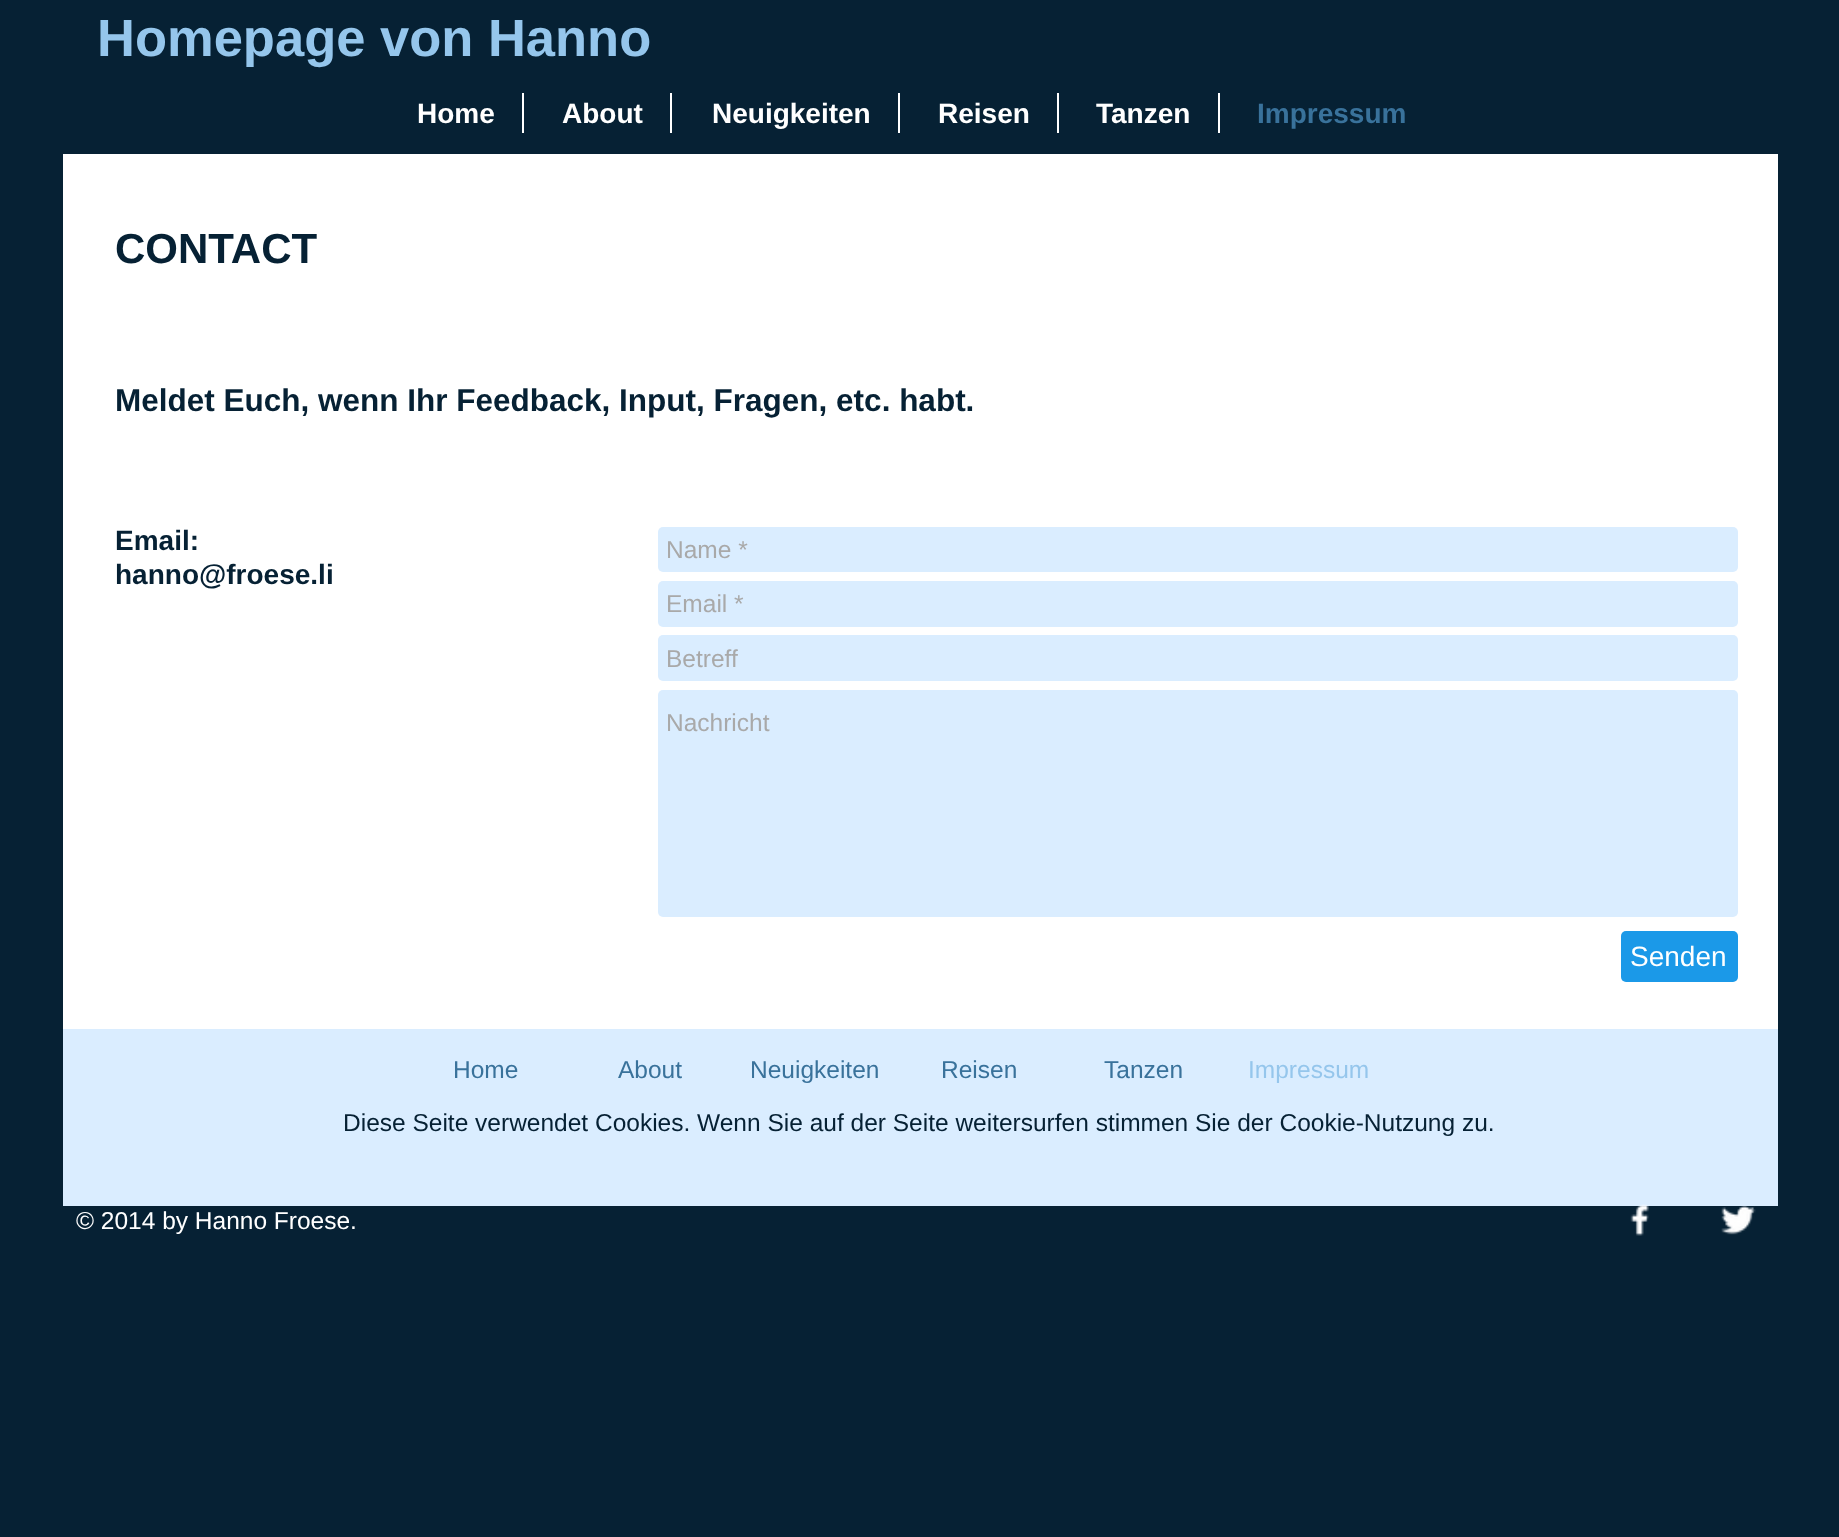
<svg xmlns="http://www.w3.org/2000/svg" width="1839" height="1537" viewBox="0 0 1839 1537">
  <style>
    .t1 { font: bold 52.5px Liberation Sans; fill: #95c6ec; }
    .t2 { font: bold 28px Liberation Sans; fill: #fff; }
    .t3 { font: bold 28px Liberation Sans; fill: #39729b; }
    .t4 { font: bold 42px Liberation Sans; fill: #062134; }
    .t5 { font: bold 31.5px Liberation Sans; fill: #062134; }
    .t6 { font: bold 28px Liberation Sans; fill: #062134; }
    .t7 { font: 24.5px Liberation Sans; fill: #a9a9a9; }
    .t8 { font: 28px Liberation Sans; fill: #fff; }
    .t9 { font: 24.5px Liberation Sans; fill: #39729b; }
    .t10 { font: 24.5px Liberation Sans; fill: #95c6ec; }
    .t11 { font: 24.5px Liberation Sans; fill: #062134; }
    .t12 { font: 24.5px Liberation Sans; fill: #fff; }
  </style>
  <rect width="100%" height="100%" fill="#062134"/>
  <text x="97" y="56" class="t1">Homepage von Hanno</text>
  <text x="417" y="123" class="t2">Home</text>
  <rect x="522" y="93" width="2" height="40" fill="#fff"/>
  <text x="562" y="123" class="t2">About</text>
  <rect x="670" y="93" width="2" height="40" fill="#fff"/>
  <text x="712" y="123" class="t2">Neuigkeiten</text>
  <rect x="898" y="93" width="2" height="40" fill="#fff"/>
  <text x="938" y="123" class="t2">Reisen</text>
  <rect x="1057" y="93" width="2" height="40" fill="#fff"/>
  <text x="1096" y="123" class="t2">Tanzen</text>
  <rect x="1218" y="93" width="2" height="40" fill="#fff"/>
  <text x="1257" y="123" class="t3">Impressum</text>
  <rect x="63" y="154" width="1715" height="875" fill="#fff"/>
  <text x="115" y="263" class="t4">CONTACT</text>
  <text x="115" y="411" class="t5">Meldet Euch, wenn Ihr Feedback, Input, Fragen, etc. habt.</text>
  <text x="115" y="550" class="t6">Email:</text>
  <text x="115" y="584" class="t6">hanno@froese.li</text>
  <rect x="658" y="527" width="1080" height="45" rx="5" fill="#daedff"/>
  <text x="666" y="558" class="t7">Name *</text>
  <rect x="658" y="581" width="1080" height="46" rx="5" fill="#daedff"/>
  <text x="666" y="612" class="t7">Email *</text>
  <rect x="658" y="635" width="1080" height="46" rx="5" fill="#daedff"/>
  <text x="666" y="667" class="t7">Betreff</text>
  <rect x="658" y="690" width="1080" height="227" rx="5" fill="#daedff"/>
  <text x="666" y="731" class="t7">Nachricht</text>
  <rect x="1621" y="931" width="117" height="51" rx="5" fill="#1b99e8"/>
  <text x="1630" y="966" class="t8">Senden</text>
  <rect x="63" y="1029" width="1715" height="177" fill="#daedff"/>
  <text x="453" y="1078" class="t9">Home</text>
  <text x="618" y="1078" class="t9">About</text>
  <text x="750" y="1078" class="t9">Neuigkeiten</text>
  <text x="941" y="1078" class="t9">Reisen</text>
  <text x="1104" y="1078" class="t9">Tanzen</text>
  <text x="1248" y="1078" class="t10">Impressum</text>
  <text x="343" y="1131" class="t11">Diese Seite verwendet Cookies. Wenn Sie auf der Seite weitersurfen stimmen Sie der Cookie-Nutzung zu.</text>
  <text x="76" y="1229" class="t12">© 2014 by Hanno Froese.</text>
  <image x="1630" y="1204" width="19" height="32" href="images/1.png"/>
  <image x="1721" y="1206" width="35" height="29" href="images/2.png"/>
</svg>
